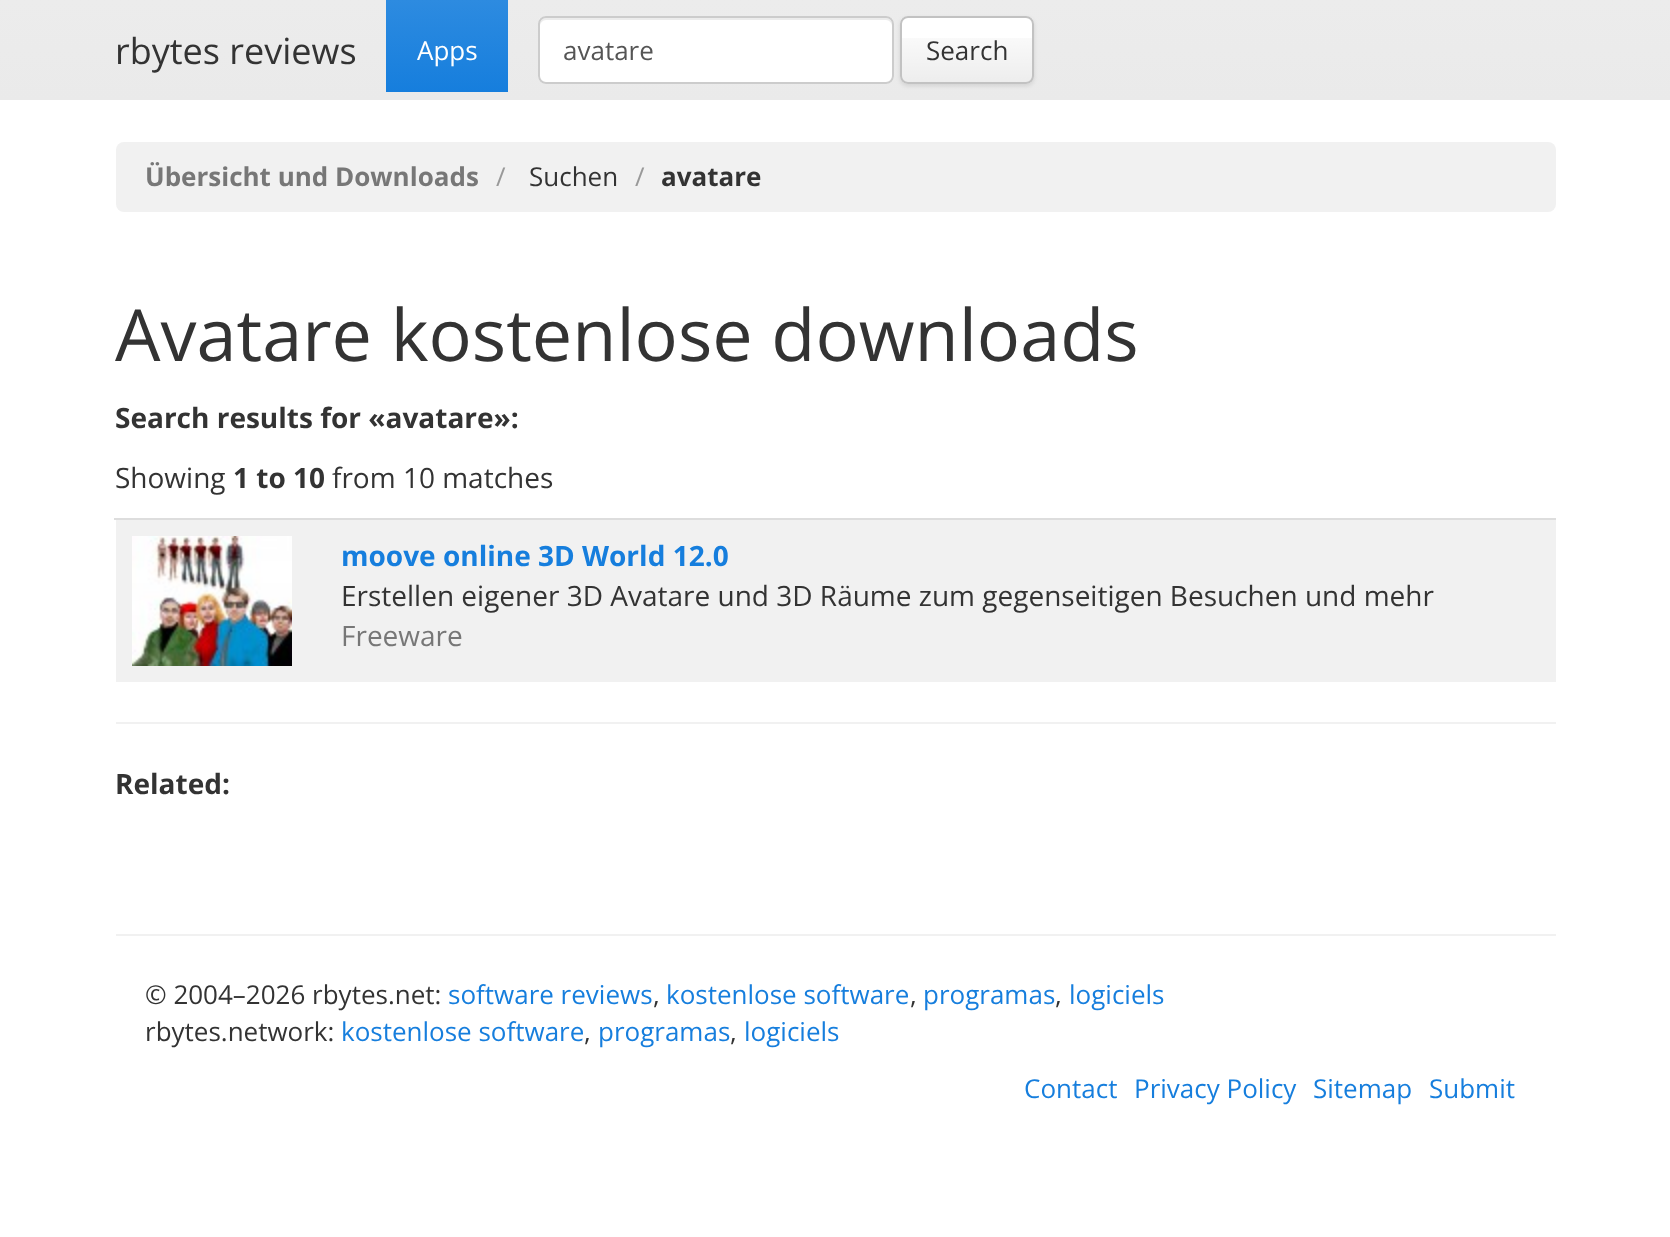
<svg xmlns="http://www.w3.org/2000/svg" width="1670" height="1237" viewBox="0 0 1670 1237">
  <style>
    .t1 { font: 36px Open Sans; fill: #333; }
    .t2 { font: 26px Open Sans; fill: #fff; }
    .t3 { font: 26px Open Sans; fill: #555; }
    .t4 { font: 26px Open Sans; fill: #333; }
    .t5 { font: bold 26px Open Sans; fill: #777; }
    .t6 { font: 26px Open Sans; fill: #999; }
    .t7 { font: bold 26px Open Sans; fill: #333; }
    .t8 { font: 72px Open Sans; fill: #333; }
    .t9 { font: bold 28px Open Sans; fill: #333; }
    .t10 { font: 28px Open Sans; fill: #333; }
    .t11 { font: bold 28px Open Sans; fill: #167edd; }
    .t12 { font: 28px Open Sans; fill: #777; }
    .t13 { font: 26px Open Sans; fill: #167edd; }
  </style>
  <defs>
    <linearGradient id="g1" gradientUnits="userSpaceOnUse" x1="835" y1="0" x2="835" y2="100"><stop offset="0" stop-color="#ececec"/><stop offset="1" stop-color="#eaeaea"/></linearGradient>
    <linearGradient id="g2" gradientUnits="userSpaceOnUse" x1="447" y1="0" x2="447" y2="92"><stop offset="0" stop-color="#2d8be0"/><stop offset="1" stop-color="#167edd"/></linearGradient>
    <clipPath id="clip1"><rect x="900" y="16" width="134" height="68" rx="8"/></clipPath>
    <linearGradient id="g3" gradientUnits="userSpaceOnUse" x1="967" y1="18" x2="967" y2="82"><stop offset="0" stop-color="#000" stop-opacity="0"/><stop offset="1" stop-color="#000" stop-opacity="0.07"/></linearGradient>
  </defs>
  <rect width="100%" height="100%" fill="#fff"/>
  <rect x="0" y="0" width="1670" height="100" fill="url(#g1)"/>
  <text x="115" y="64" class="t1">rbytes reviews</text>
  <rect x="386" y="0" width="122" height="92" fill="url(#g2)"/>
  <text x="417" y="60" class="t2">Apps</text>
  <rect x="538" y="16" width="356" height="68" rx="8" fill="#fff"/>
  <path d="M546 20H886C889 20 892 23 892 26V24C892 21 889 18 886 18H546C543 18 540 21 540 24V26C540 23 543 20 546 20Z" fill="#ececec"/>
  <rect x="539" y="17" width="354" height="66" rx="7" fill="none" stroke="#ccc" stroke-width="2"/>
  <text x="563" y="60" class="t3">avatare</text>
  <rect x="900" y="18" width="134" height="68" rx="8" fill="#0000001a" filter="blur(2px)"/>
  <rect x="900" y="16" width="134" height="68" rx="8" fill="#fff"/>
  <g clip-path="url(#clip1)">
    <rect x="900" y="38" width="134" height="44" fill="url(#g3)"/>
  </g>
  <rect x="901" y="17" width="132" height="66" rx="7" fill="none" stroke="#c2c2c2" stroke-width="2"/>
  <text x="926" y="60" class="t4">Search</text>
  <rect x="116" y="142" width="1440" height="70" rx="8" fill="#f1f1f1"/>
  <text x="145" y="186" class="t5">Übersicht und Downloads</text>
  <text x="496" y="186" class="t6">/</text>
  <text x="529" y="186" class="t4">Suchen</text>
  <text x="635" y="186" class="t6">/</text>
  <text x="661" y="186" class="t7">avatare</text>
  <text x="115" y="361" class="t8">Avatare kostenlose downloads</text>
  <text x="115" y="428" class="t9">Search results for «avatare»:</text>
  <text x="115" y="488" class="t10">Showing</text>
  <text x="233" y="488" class="t9">1 to 10</text>
  <text x="332" y="488" class="t10">from 10 matches</text>
  <rect x="116" y="520" width="1440" height="162" fill="#f1f1f1"/>
  <image x="132" y="536" width="160" height="130" href="images/1.png"/>
  <rect x="114" y="518" width="1442" height="2" fill="#ddd"/>
  <text x="341" y="566" class="t11">moove online 3D World 12.0</text>
  <text x="341" y="606" class="t10">Erstellen eigener 3D Avatare und 3D Räume zum gegenseitigen Besuchen und mehr</text>
  <text x="341" y="646" class="t12">Freeware</text>
  <rect x="116" y="722" width="1440" height="2" fill="#f1f1f1"/>
  <text x="115" y="794" class="t9">Related:</text>
  <rect x="116" y="934" width="1440" height="2" fill="#f1f1f1"/>
  <text x="145" y="1004" class="t4">© 2004–2026 rbytes.net:</text>
  <text x="448" y="1004" class="t13">software reviews</text>
  <text x="653" y="1004" class="t4">,</text>
  <text x="666" y="1004" class="t13">kostenlose software</text>
  <text x="910" y="1004" class="t4">,</text>
  <text x="923" y="1004" class="t13">programas</text>
  <text x="1055" y="1004" class="t4">,</text>
  <text x="1069" y="1004" class="t13">logiciels</text>
  <text x="145" y="1041" class="t4">rbytes.network:</text>
  <text x="341" y="1041" class="t13">kostenlose software</text>
  <text x="584" y="1041" class="t4">,</text>
  <text x="598" y="1041" class="t13">programas</text>
  <text x="730" y="1041" class="t4">,</text>
  <text x="744" y="1041" class="t13">logiciels</text>
  <text x="1024" y="1098" class="t13">Contact</text>
  <text x="1134" y="1098" class="t13">Privacy Policy</text>
  <text x="1313" y="1098" class="t13">Sitemap</text>
  <text x="1429" y="1098" class="t13">Submit</text>
</svg>
